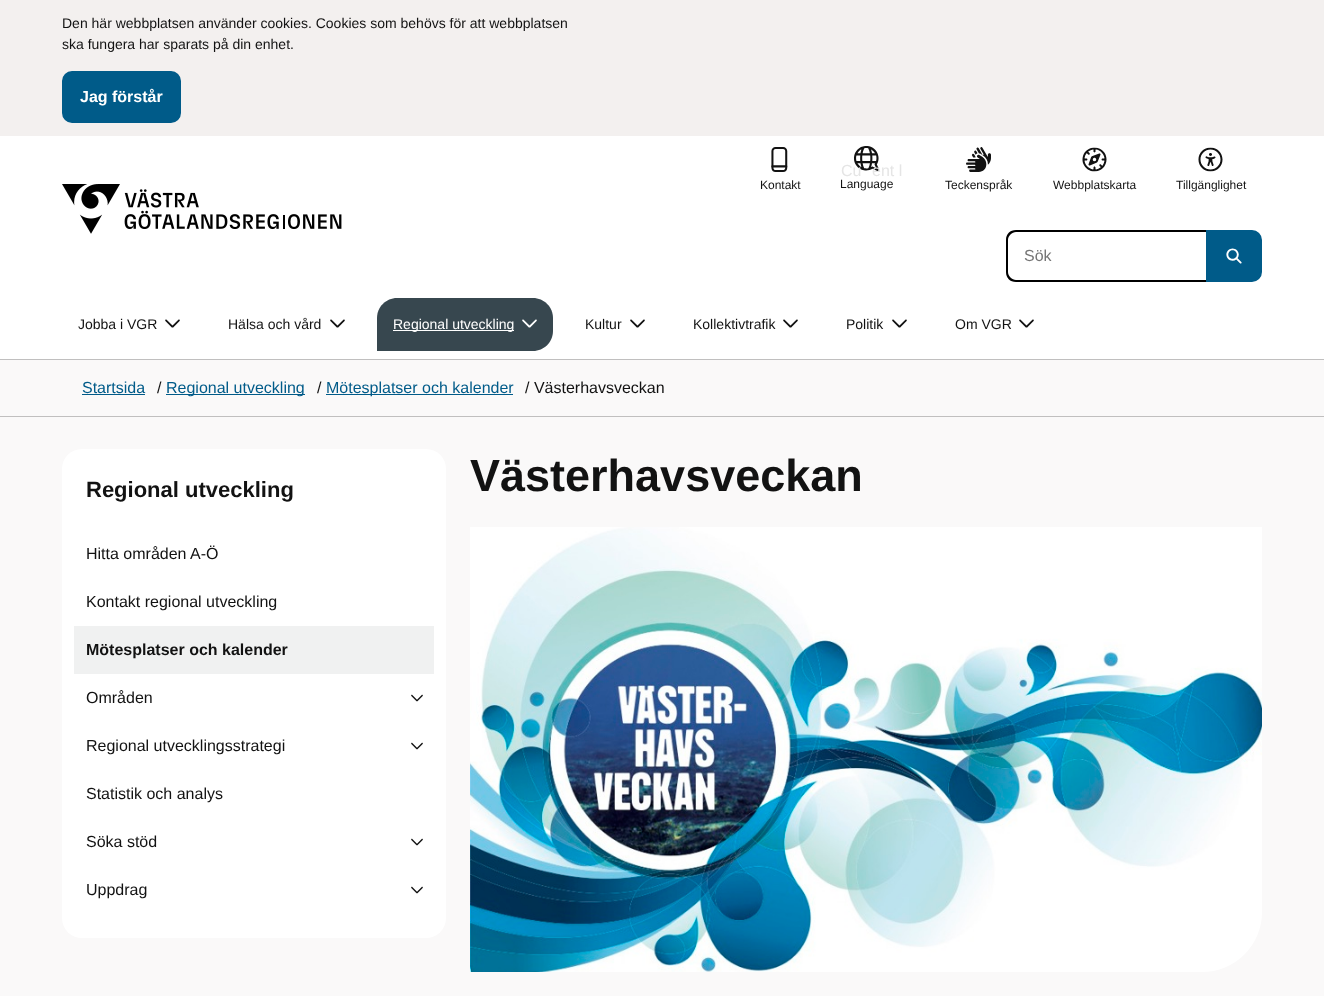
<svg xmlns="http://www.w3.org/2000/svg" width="1324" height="996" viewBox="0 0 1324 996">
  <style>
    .t1 { font: 14px Liberation Sans; fill: #121212; }
    .t2 { font: bold 16px Liberation Sans; fill: #fff; }
    .t3 { font: 12px Liberation Sans; fill: #121212; }
    .t4 { font: 16px Liberation Sans; fill: #e5e5e5; }
    .t5 { font: 16px Liberation Sans; fill: #757575; }
    .t6 { font: 14px Liberation Sans; fill: #fff; }
    .t7 { font: 16px Liberation Sans; fill: #005b89; }
    .t8 { font: 16px Liberation Sans; fill: #121212; }
    .t9 { font: bold 45px Liberation Sans; fill: #121212; }
    .t10 { font: bold 22px Liberation Sans; fill: #121212; }
    .t11 { font: bold 16px Liberation Sans; fill: #121212; }
  </style>
  <rect width="100%" height="100%" fill="#faf9f9"/>
  <rect x="0" y="136" width="1324" height="223" fill="#fff"/>
  <rect x="0" y="0" width="1324" height="136" fill="#f3f0ef"/>
  <text x="62" y="28" class="t1">Den här webbplatsen använder cookies. Cookies som behövs för att webbplatsen</text>
  <text x="62" y="49" class="t1">ska fungera har sparats på din enhet.</text>
  <rect x="63" y="72" width="117" height="50" rx="9" fill="#005b89" stroke="#005b89" stroke-width="2"/>
  <text x="80" y="102" class="t2">Jag förstår</text>
  <image x="62" y="184" width="280" height="50" href="images/1.png"/>
  <image x="771" y="147" width="17" height="25" href="images/2.png"/>
  <text x="760" y="189" class="t3">Kontakt</text>
  <image x="854" y="146" width="25" height="25" href="images/3.png"/>
  <text x="841" y="176" class="t4">Cu</text>
  <text x="872" y="176" class="t4">ent l</text>
  <text x="840" y="188" class="t3">Language</text>
  <image x="966" y="147" width="25" height="25" href="images/4.png"/>
  <text x="945" y="189" class="t3">Teckenspråk</text>
  <image x="1082" y="147" width="25" height="25" href="images/5.png"/>
  <text x="1053" y="189" class="t3">Webbplatskarta</text>
  <image x="1198" y="147" width="25" height="25" href="images/6.png"/>
  <text x="1176" y="189" class="t3">Tillgänglighet</text>
  <path d="M1016 230H1206V282H1016C1010 282 1006 278 1006 272V240C1006 234 1010 230 1016 230ZM1016 232H1206V280H1016C1012 280 1008 276 1008 272V240C1008 236 1012 232 1016 232Z" fill="#000" fill-rule="evenodd"/>
  <text x="1024" y="261" class="t5">Sök</text>
  <path d="M1207 231H1252C1257 231 1261 235 1261 240V272C1261 277 1257 281 1252 281H1207Z" fill="#005b89" stroke="#005b89" stroke-width="2"/>
  <image x="1226" y="248" width="16" height="16" href="images/7.png"/>
  <text x="78" y="329" class="t1">Jobba i VGR</text>
  <image x="165" y="319" width="15" height="9" href="images/8.png"/>
  <text x="228" y="329" class="t1">Hälsa och vård</text>
  <image x="330" y="319" width="15" height="9" href="images/8.png"/>
  <path d="M397 298H533C544 298 553 307 553 318V331C553 342 544 351 533 351H377V318C377 307 386 298 397 298Z" fill="#37474f"/>
  <rect x="393" y="330" width="121" height="1" fill="#fff"/>
  <text x="393" y="329" class="t6">Regional utveckling</text>
  <image x="522" y="319" width="15" height="9" href="images/9.png"/>
  <text x="585" y="329" class="t1">Kultur</text>
  <image x="630" y="319" width="15" height="9" href="images/8.png"/>
  <text x="693" y="329" class="t1">Kollektivtrafik</text>
  <image x="783" y="319" width="15" height="9" href="images/8.png"/>
  <text x="846" y="329" class="t1">Politik</text>
  <image x="892" y="319" width="15" height="9" href="images/8.png"/>
  <text x="955" y="329" class="t1">Om VGR</text>
  <image x="1019" y="319" width="15" height="9" href="images/8.png"/>
  <rect x="0" y="359" width="1324" height="1" fill="#c0bfbf"/>
  <text x="82" y="393" class="t7">Startsida</text>
  <rect x="82" y="394" width="63" height="1" fill="#005b89"/>
  <text x="157" y="393" class="t8">/</text>
  <rect x="166" y="394" width="139" height="1" fill="#005b89"/>
  <text x="166" y="393" class="t7">Regional utveckling</text>
  <text x="317" y="393" class="t8">/</text>
  <rect x="326" y="394" width="187" height="1" fill="#005b89"/>
  <text x="326" y="393" class="t7">Mötesplatser och kalender</text>
  <text x="525" y="393" class="t8">/ Västerhavsveckan</text>
  <rect x="0" y="416" width="1324" height="1" fill="#c0bfbf"/>
  <text x="470" y="491" class="t9">Västerhavsveckan</text>
  <image x="470" y="527" width="792" height="445" href="images/10.png"/>
  <rect x="62" y="449" width="384" height="489" rx="20" fill="#fff"/>
  <text x="86" y="497" class="t10">Regional utveckling</text>
  <text x="86" y="559" class="t8">Hitta områden A-Ö</text>
  <text x="86" y="607" class="t8">Kontakt regional utveckling</text>
  <rect x="74" y="626" width="360" height="48" fill="#f0f1f1"/>
  <text x="86" y="655" class="t11">Mötesplatser och kalender</text>
  <text x="86" y="703" class="t8">Områden</text>
  <image x="411" y="694" width="12" height="8" href="images/11.png"/>
  <text x="86" y="751" class="t8">Regional utvecklingsstrategi</text>
  <image x="411" y="742" width="12" height="8" href="images/11.png"/>
  <text x="86" y="799" class="t8">Statistik och analys</text>
  <text x="86" y="847" class="t8">Söka stöd</text>
  <image x="411" y="838" width="12" height="8" href="images/11.png"/>
  <text x="86" y="895" class="t8">Uppdrag</text>
  <image x="411" y="886" width="12" height="8" href="images/11.png"/>
</svg>
